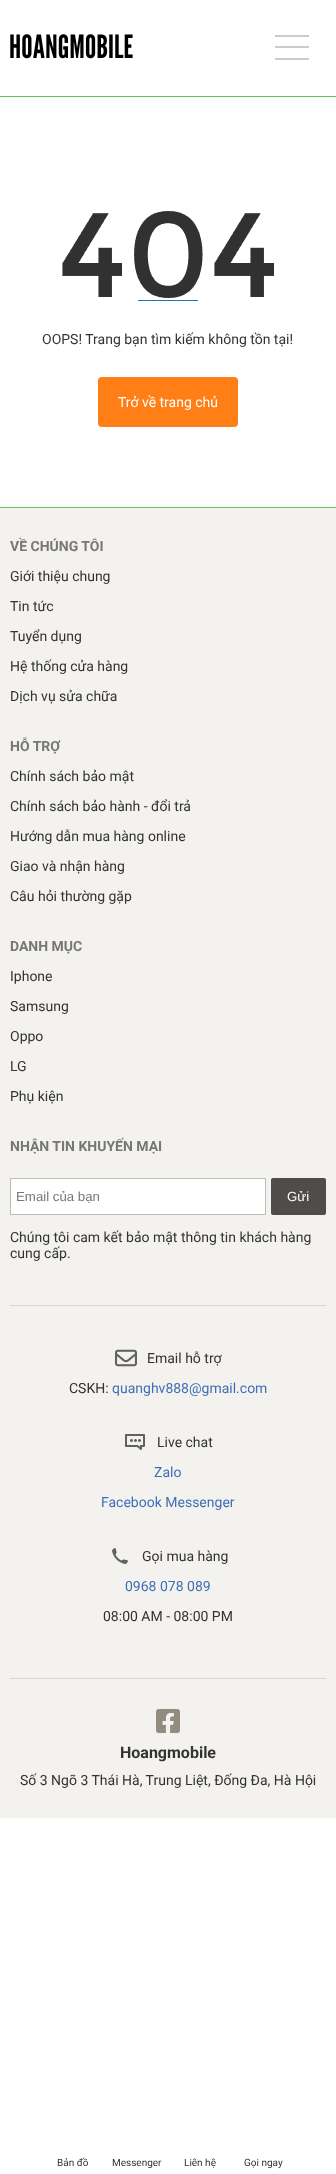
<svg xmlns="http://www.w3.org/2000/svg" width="336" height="2174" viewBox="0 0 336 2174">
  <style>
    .t1 { font: 14px Roboto; fill: #333; }
    .t2 { font: 14px Roboto; fill: #fff; }
    .t3 { font: bold 14px Roboto; fill: #777; }
    .t4 { font: 13.25px Liberation Sans; fill: #777; }
    .t5 { font: 13.25px Liberation Sans; fill: #fff; }
    .t6 { font: 14px Roboto; fill: #406eb5; }
    .t7 { font: bold 16px Roboto; fill: #333; }
    .t8 { font: 10px Roboto; fill: #333; }
  </style>
  <rect width="100%" height="100%" fill="#fff"/>
  <rect x="0" y="96" width="336" height="1" fill="#61c257"/>
  <image x="10" y="34" width="123" height="25" href="images/1.png"/>
  <rect x="275" y="58" width="34" height="2" fill="#ccc"/>
  <rect x="275" y="46" width="34" height="2" fill="#ccc"/>
  <rect x="275" y="35" width="34" height="2" fill="#ccc"/>
  <image x="62" y="211" width="212" height="87" href="images/2.png"/>
  <rect x="138" y="300" width="60" height="1" fill="#1e73be"/>
  <text x="42" y="344" class="t1">OOPS! Trang bạn tìm kiếm không tồn tại!</text>
  <rect x="98" y="377" width="140" height="50" rx="4" fill="#ff7e16"/>
  <text x="118" y="407" class="t2">Trở về trang chủ</text>
  <rect x="0" y="508" width="336" height="1310" fill="#f3f2ef"/>
  <rect x="0" y="507" width="336" height="1" fill="#61c257"/>
  <text x="10" y="551" class="t3">VỀ CHÚNG TÔI</text>
  <text x="10" y="581" class="t1">Giới thiệu chung</text>
  <text x="10" y="611" class="t1">Tin tức</text>
  <text x="10" y="641" class="t1">Tuyển dụng</text>
  <text x="10" y="671" class="t1">Hệ thống cửa hàng</text>
  <text x="10" y="701" class="t1">Dịch vụ sửa chữa</text>
  <text x="10" y="751" class="t3">HỖ TRỢ</text>
  <text x="10" y="781" class="t1">Chính sách bảo mật</text>
  <text x="10" y="811" class="t1">Chính sách bảo hành - đổi trả</text>
  <text x="10" y="841" class="t1">Hướng dẫn mua hàng online</text>
  <text x="10" y="871" class="t1">Giao và nhận hàng</text>
  <text x="10" y="901" class="t1">Câu hỏi thường gặp</text>
  <text x="10" y="951" class="t3">DANH MỤC</text>
  <text x="10" y="981" class="t1">Iphone</text>
  <text x="10" y="1011" class="t1">Samsung</text>
  <text x="10" y="1041" class="t1">Oppo</text>
  <text x="10" y="1071" class="t1">LG</text>
  <text x="10" y="1101" class="t1">Phụ kiện</text>
  <text x="10" y="1151" class="t3">NHẬN TIN KHUYẾN MẠI</text>
  <rect x="10.5" y="1178.5" width="255" height="36" fill="#fff" stroke="#bdbdbd"/>
  <text x="16" y="1201" class="t4">Email của bạn</text>
  <rect x="271" y="1178" width="55" height="37" rx="2" fill="#4e4d49"/>
  <text x="287" y="1201" class="t5">Gửi</text>
  <text x="10" y="1242" class="t1">Chúng tôi cam kết bảo mật thông tin khách hàng</text>
  <text x="10" y="1258" class="t1">cung cấp.</text>
  <rect x="10" y="1305" width="316" height="1" fill="#dcd6cb"/>
  <rect x="10" y="1678" width="316" height="1" fill="#dcd6cb"/>
  <image x="115" y="1349" width="22" height="18" href="images/3.png"/>
  <text x="147" y="1363" class="t1">Email hỗ trợ</text>
  <text x="69" y="1393" class="t1">CSKH:</text>
  <text x="112" y="1393" class="t6">quanghv888@gmail.com</text>
  <image x="125" y="1434" width="20" height="16" href="images/4.png"/>
  <text x="157" y="1447" class="t1">Live chat</text>
  <text x="154" y="1477" class="t6">Zalo</text>
  <text x="101" y="1507" class="t6">Facebook Messenger</text>
  <image x="112" y="1548" width="16" height="16" href="images/5.png"/>
  <text x="142" y="1561" class="t1">Gọi mua hàng</text>
  <text x="125" y="1591" class="t6">0968 078 089</text>
  <text x="103" y="1621" class="t1">08:00 AM - 08:00 PM</text>
  <image x="156" y="1709" width="24" height="24" href="images/6.png"/>
  <text x="120" y="1758" class="t7">Hoangmobile</text>
  <text x="20" y="1785" class="t1">Số 3 Ngõ 3 Thái Hà, Trung Liệt, Đống Đa, Hà Hội</text>
  <text x="57" y="2166" class="t8">Bản đồ</text>
  <text x="112" y="2166" class="t8">Messenger</text>
  <text x="184" y="2166" class="t8">Liên hệ</text>
  <text x="244" y="2166" class="t8">Gọi ngay</text>
</svg>
